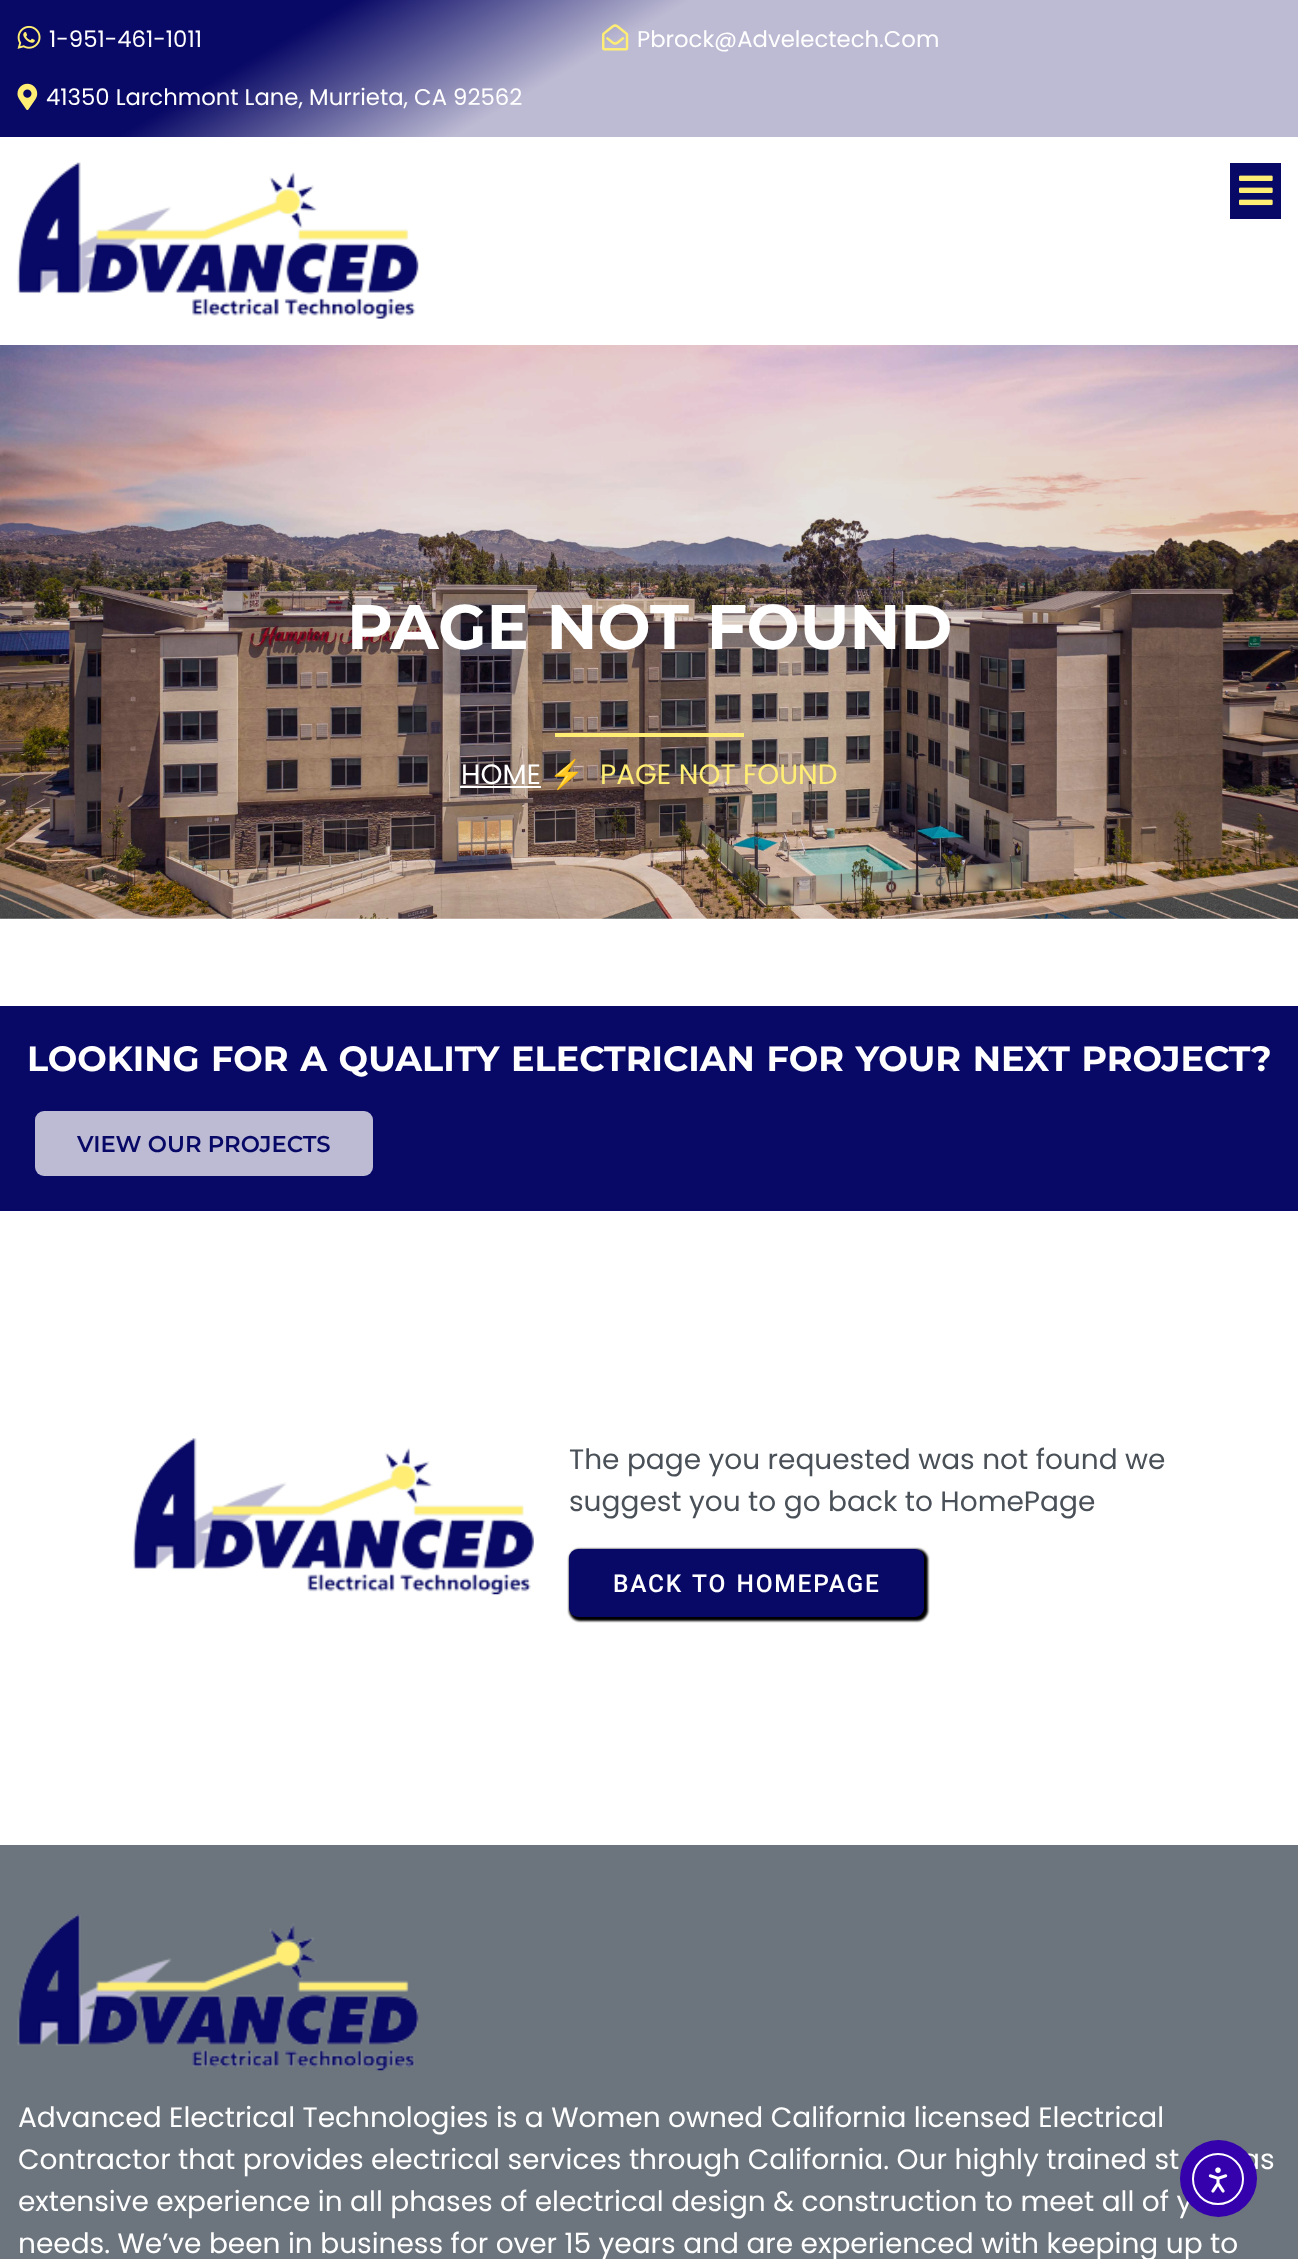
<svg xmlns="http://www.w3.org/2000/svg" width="1298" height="2259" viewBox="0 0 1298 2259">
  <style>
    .t1 { font: 22.75px Poppins; fill: #fff; }
    .t2 { font: bold 63px Montserrat; fill: #fff; }
    .t3 { font: 28px Poppins; fill: #fff; }
    .t4 { font: 28px Noto Color Emoji; fill: #080866; }
    .t5 { font: 28px Poppins; fill: #ffee73; }
    .t6 { font: bold 35px Montserrat; fill: #fff; }
    .t7 { font: 600 22.75px Montserrat; fill: #080866; }
    .t8 { font: 28px Poppins; fill: #495057; }
    .t9 { font: 500 24.5px Roboto; letter-spacing: 1.75px; fill: #fff; }
  </style>
  <defs>
    <linearGradient id="g1" gradientUnits="userSpaceOnUse" x1="457" y1="-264" x2="841" y2="401"><stop offset="0.23" stop-color="#080866"/><stop offset="0.45" stop-color="#bdbbd3"/><stop offset="1" stop-color="#bdbbd3"/></linearGradient>
  </defs>
  <rect width="100%" height="100%" fill="#fff"/>
  <rect x="0" y="0" width="1298" height="137" fill="url(#g1)"/>
  <image x="17" y="25" width="24" height="24" href="images/1.png"/>
  <text x="49" y="47" class="t1">1-951-461-1011</text>
  <image x="602" y="24" width="27" height="27" href="images/2.png"/>
  <text x="637" y="47" class="t1">Pbrock@Advelectech.Com</text>
  <image x="17" y="83" width="21" height="27" href="images/3.png"/>
  <text x="46" y="105" class="t1">41350 Larchmont Lane, Murrieta, CA 92562</text>
  <image x="17" y="162" width="402" height="157" href="images/4.png"/>
  <rect x="1230" y="163" width="51" height="56" fill="#080866"/>
  <image x="1239" y="175" width="34" height="31" href="images/5.png"/>
  <image x="0" y="345" width="1298" height="574" href="images/6.png"/>
  <text x="347" y="649" class="t2">PAGE NOT FOUND</text>
  <rect x="555" y="733" width="189" height="4" fill="#ffee73"/>
  <text x="461" y="784" class="t3">HOME</text>
  <rect x="460" y="786" width="81" height="2" fill="#fff"/>
  <text x="549" y="784" class="t4">⚡</text>
  <text x="600" y="784" class="t5">PAGE NOT FOUND</text>
  <rect x="0" y="1006" width="1298" height="205" fill="#080866"/>
  <text x="27" y="1071" word-spacing="1.75" class="t6">LOOKING FOR A QUALITY ELECTRICIAN FOR YOUR NEXT PROJECT?</text>
  <rect x="35" y="1111" width="338" height="65" rx="9" fill="#bdbbd3"/>
  <text x="77" y="1152" class="t7">VIEW OUR PROJECTS</text>
  <image x="133" y="1438" width="401" height="157" href="images/7.png"/>
  <text x="569" y="1469" class="t8">The page you requested was not found we</text>
  <text x="569" y="1511" class="t8">suggest you to go back to HomePage</text>
  <rect x="569" y="1549" width="359" height="72" rx="11" fill="#000" filter="blur(1px)"/>
  <rect x="569" y="1549" width="355" height="68" rx="9" fill="#080866"/>
  <text x="613" y="1592" word-spacing="1.75" class="t9">BACK TO HOMEPAGE</text>
  <rect x="0" y="1845" width="1298" height="414" fill="#6c757d"/>
  <image x="17" y="1914" width="402" height="157" href="images/8.png"/>
  <text x="18" y="2127" class="t3">Advanced Electrical Technologies is a Women owned California licensed Electrical</text>
  <text x="18" y="2169" class="t3">Contractor that provides electrical services through California. Our highly trained st</text>
  <text x="1241" y="2169" class="t3">as</text>
  <text x="18" y="2211" class="t3">extensive experience in all phases of electrical design &amp; construction to meet all of y</text>
  <text x="18" y="2253" class="t3">needs. We’ve been in business for over 15 years and are experienced with keeping up to</text>
  <circle cx="1218.5" cy="2178.5" r="38.5" fill="#3401ac"/>
  <circle cx="1218" cy="2179" r="25" fill="none" stroke="#fff" stroke-width="2"/>
  <image x="1208" y="2167" width="20" height="26" href="images/9.png"/>
</svg>
